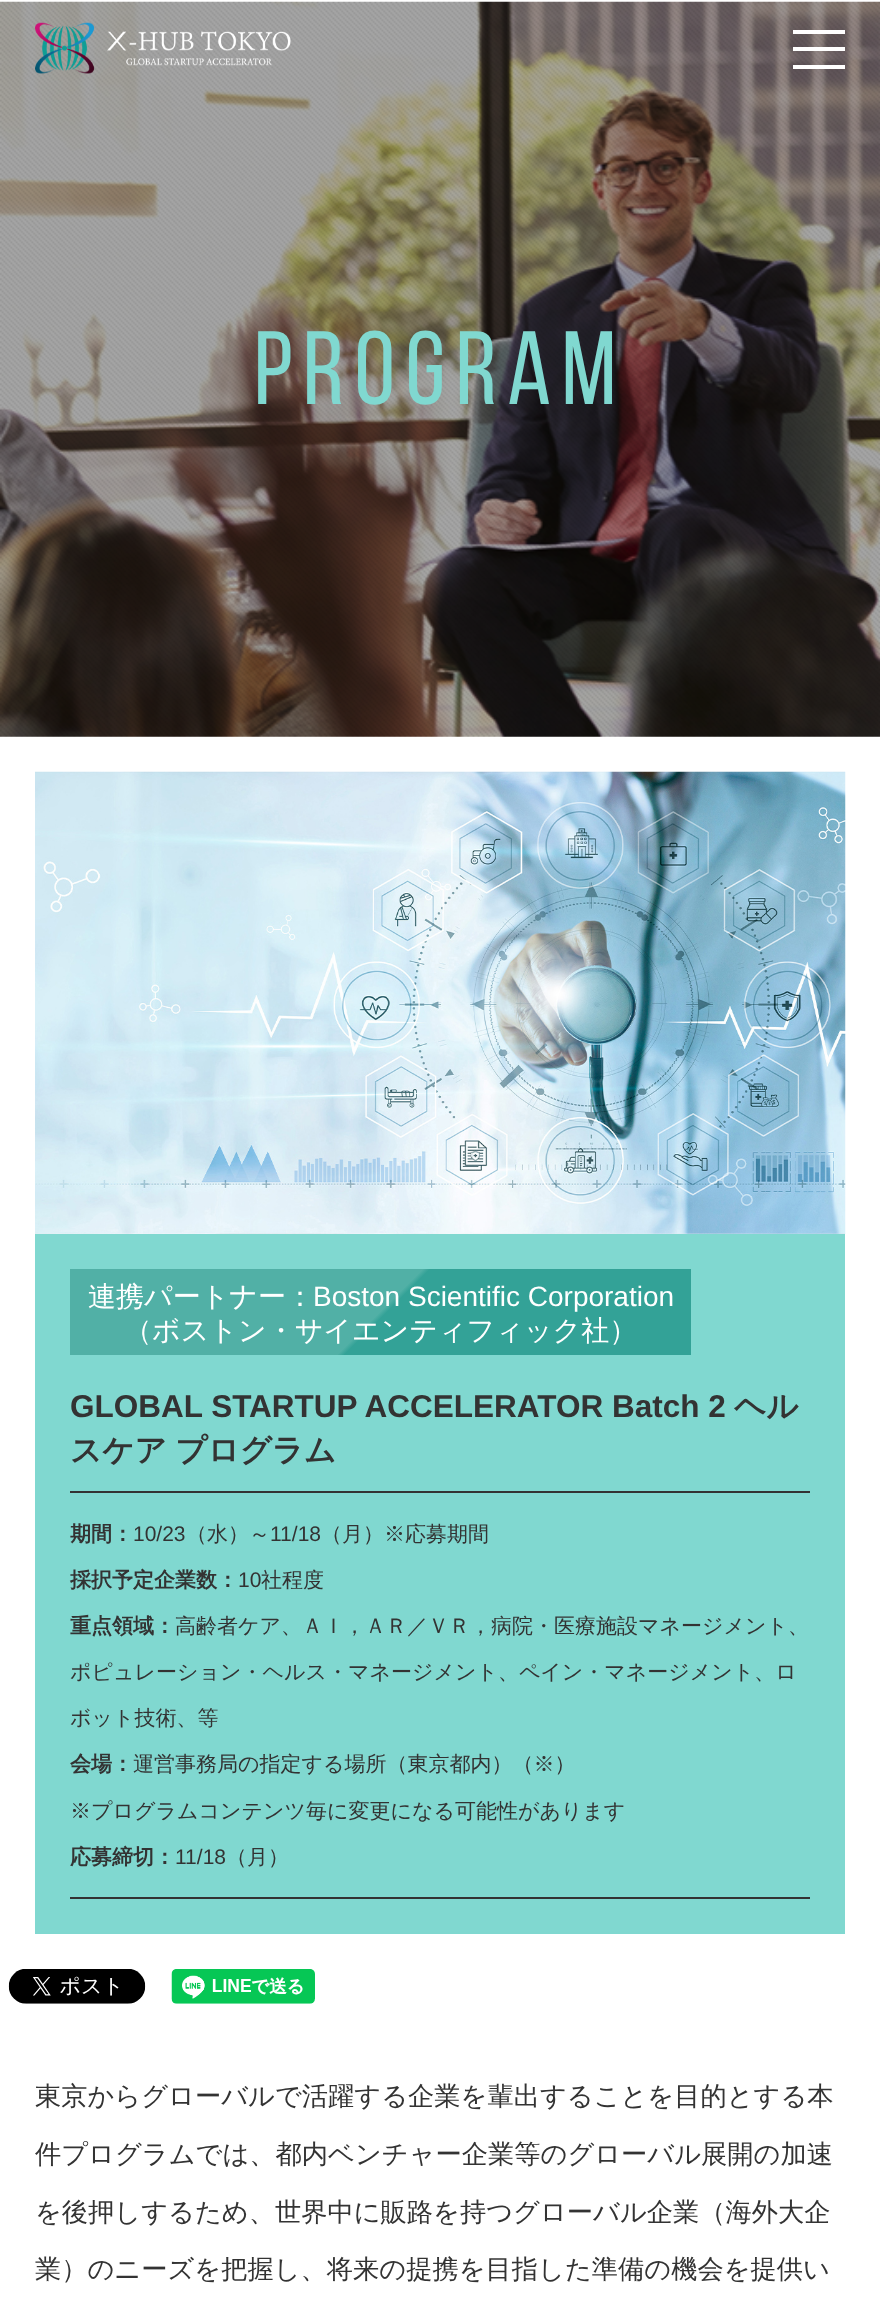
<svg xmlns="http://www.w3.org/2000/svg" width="880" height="2310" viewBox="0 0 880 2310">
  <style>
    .t1 { font: 104px Bebas Neue; letter-spacing: 10.5px; fill: #80d8d0; }
    .t2 { font: 500 28px WenQuanYi Zen Hei; fill: #fff; }
    .t3 { font: 28px Liberation Sans; fill: #fff; }
    .t4 { font: bold 31.5px Liberation Sans; fill: #333; }
    .t5 { font: bold 31.5px WenQuanYi Zen Hei; fill: #333; }
    .t6 { font: bold 21px WenQuanYi Zen Hei; fill: #333; }
    .t7 { font: 21px Liberation Sans; fill: #333; }
    .t8 { font: 500 21px WenQuanYi Zen Hei; fill: #333; }
    .t9 { font: 500 26.25px WenQuanYi Zen Hei; fill: #333; }
  </style>
  <defs>
    <linearGradient id="g1" gradientUnits="userSpaceOnUse" x1="204" y1="1135" x2="557" y2="1488"><stop offset="0" stop-color="#51b0a6"/><stop offset="0.5" stop-color="#51b0a6"/><stop offset="0.51" stop-color="#33a297"/><stop offset="1" stop-color="#33a297"/></linearGradient>
  </defs>
  <rect width="100%" height="100%" fill="#fff"/>
  <image x="0" y="1" width="880" height="736" href="images/2.png"/>
  <image x="35" y="22" width="256" height="52" href="images/1.png"/>
  <rect x="793" y="47" width="52" height="4" fill="#fff"/>
  <rect x="793" y="30" width="52" height="4" fill="#fff"/>
  <rect x="793" y="65" width="52" height="4" fill="#fff"/>
  <text x="254" y="404" class="t1">program</text>
  <image x="35" y="771" width="811" height="463" href="images/3.png"/>
  <rect x="35" y="1234" width="810" height="700" fill="#80d8d0"/>
  <rect x="70" y="1269" width="621" height="86" fill="url(#g1)"/>
  <text x="88" y="1306" class="t2">連携パートナー：</text>
  <text x="313" y="1306" class="t3">Boston Scientific Corporation</text>
  <text x="124" y="1340" class="t2">（ボストン・サイエンティフィック社）</text>
  <text x="70" y="1417" class="t4">GLOBAL STARTUP ACCELERATOR Batch 2</text>
  <text x="734" y="1417" class="t5">ヘル</text>
  <text x="70" y="1461" word-spacing="-1" class="t5">スケア プログラム</text>
  <rect x="70" y="1491" width="740" height="2" fill="#333"/>
  <rect x="70" y="1897" width="740" height="2" fill="#333"/>
  <text x="70" y="1541" class="t6">期間：</text>
  <text x="133" y="1541" class="t7">10/23</text>
  <text x="186" y="1541" class="t8">（水）～</text>
  <text x="270" y="1541" class="t7">11/18</text>
  <text x="321" y="1541" class="t8">（月）※応募期間</text>
  <text x="70" y="1587" class="t6">採択予定企業数：</text>
  <text x="238" y="1587" class="t7">10</text>
  <text x="261" y="1587" class="t8">社程度</text>
  <text x="70" y="1633" class="t6">重点領域：</text>
  <text x="175" y="1633" class="t8">高齢者ケア、ＡＩ，ＡＲ／ＶＲ，病院・医療施設マネージメント、</text>
  <text x="70" y="1679" class="t8">ポピュレーション・ヘルス・マネージメント、ペイン・マネージメント、ロ</text>
  <text x="70" y="1725" class="t8">ボット技術、等</text>
  <text x="70" y="1771" class="t6">会場：</text>
  <text x="133" y="1771" class="t8">運営事務局の指定する場所（東京都内）（※）</text>
  <text x="70" y="1818" class="t8">※プログラムコンテンツ毎に変更になる可能性があります</text>
  <text x="70" y="1864" class="t6">応募締切：</text>
  <text x="175" y="1864" class="t7">11/18</text>
  <text x="226" y="1864" class="t8">（月）</text>
  <image x="8" y="1969" width="138" height="35" href="images/4.png"/>
  <image x="171" y="1969" width="144" height="35" href="images/5.png"/>
  <text x="35" y="2105" class="t9">東京からグローバルで活躍する企業を輩出することを目的とする本</text>
  <text x="35" y="2163" class="t9">件プログラムでは、都内ベンチャー企業等のグローバル展開の加速</text>
  <text x="35" y="2221" class="t9">を後押しするため、世界中に販路を持つグローバル企業（海外大企</text>
  <text x="35" y="2278" class="t9">業）のニーズを把握し、将来の提携を目指した準備の機会を提供い</text>
</svg>
